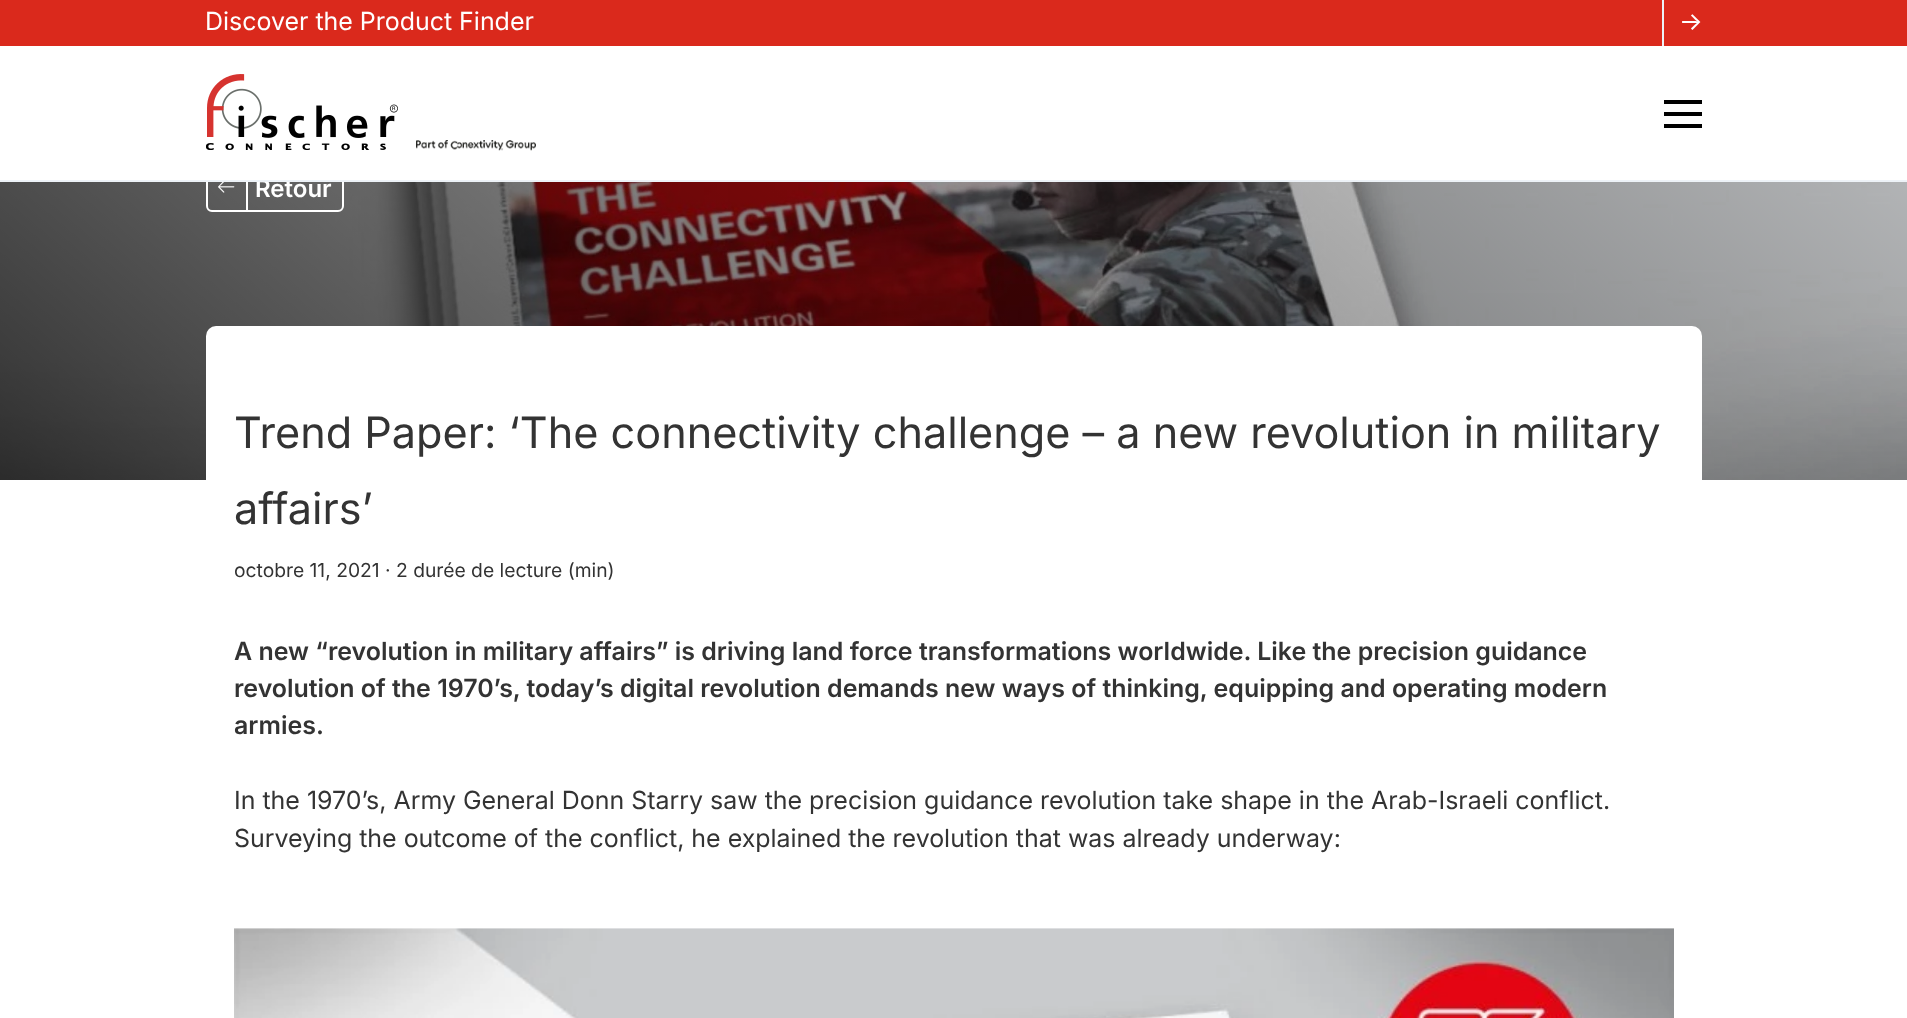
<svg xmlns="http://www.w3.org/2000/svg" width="1907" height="1018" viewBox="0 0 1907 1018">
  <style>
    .t1 { font: 600 24px Inter; fill: #fff; }
    .t2 { font: 24.95px Inter; fill: #fff; }
    .t3 { font: 43.2px Inter; fill: #333; }
    .t4 { font: 19.25px Inter; fill: #333; }
    .t5 { font: 600 24.95px Inter; fill: #333; }
    .t6 { font: 24.95px Inter; fill: #333; }
  </style>
  <rect width="100%" height="100%" fill="#fff"/>
  <image x="0" y="182" width="1907" height="298" href="images/3.png"/>
  <rect x="207" y="165" width="136" height="46" rx="5" fill="none" stroke="#fff" stroke-width="2"/>
  <text x="255" y="197" class="t1">Retour</text>
  <rect x="0" y="180" width="1907" height="2" fill="#edf2f7"/>
  <rect x="0" y="0" width="1907" height="46" fill="#da291c"/>
  <text x="205" y="30" class="t2">Discover the Product Finder</text>
  <rect x="1662" y="0" width="2" height="46" fill="#edf2f7"/>
  <text x="1679" y="30" class="t2">-&gt;</text>
  <image x="206" y="74" width="192" height="76" href="images/1.png"/>
  <image x="416" y="140" width="120" height="11" href="images/2.png"/>
  <rect x="1664" y="112" width="38" height="4" fill="#000"/>
  <rect x="1664" y="100" width="38" height="4" fill="#000"/>
  <rect x="1664" y="124" width="38" height="4" fill="#000"/>
  <image x="218" y="182" width="17" height="11" href="images/4.png"/>
  <rect x="246" y="182" width="2" height="30" fill="#fff"/>
  <rect x="206" y="326" width="1496" height="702" rx="10" fill="#fff"/>
  <text x="234" y="448" class="t3">Trend Paper: ‘The connectivity challenge – a new revolution in military</text>
  <text x="234" y="524" class="t3">affairs’</text>
  <text x="234" y="577" class="t4">octobre 11, 2021 · 2 durée de lecture (min)</text>
  <text x="234" y="660" class="t5">A new “revolution in military affairs” is driving land force transformations worldwide. Like the precision guidance</text>
  <text x="234" y="697" class="t5">revolution of the 1970’s, today’s digital revolution demands new ways of thinking, equipping and operating modern</text>
  <text x="234" y="734" class="t5">armies.</text>
  <text x="234" y="809" class="t6">In the 1970’s, Army General Donn Starry saw the precision guidance revolution take shape in the Arab-Israeli conflict.</text>
  <text x="234" y="847" class="t6">Surveying the outcome of the conflict, he explained the revolution that was already underway:</text>
  <image x="234" y="928" width="1440" height="90" href="images/5.png"/>
</svg>
